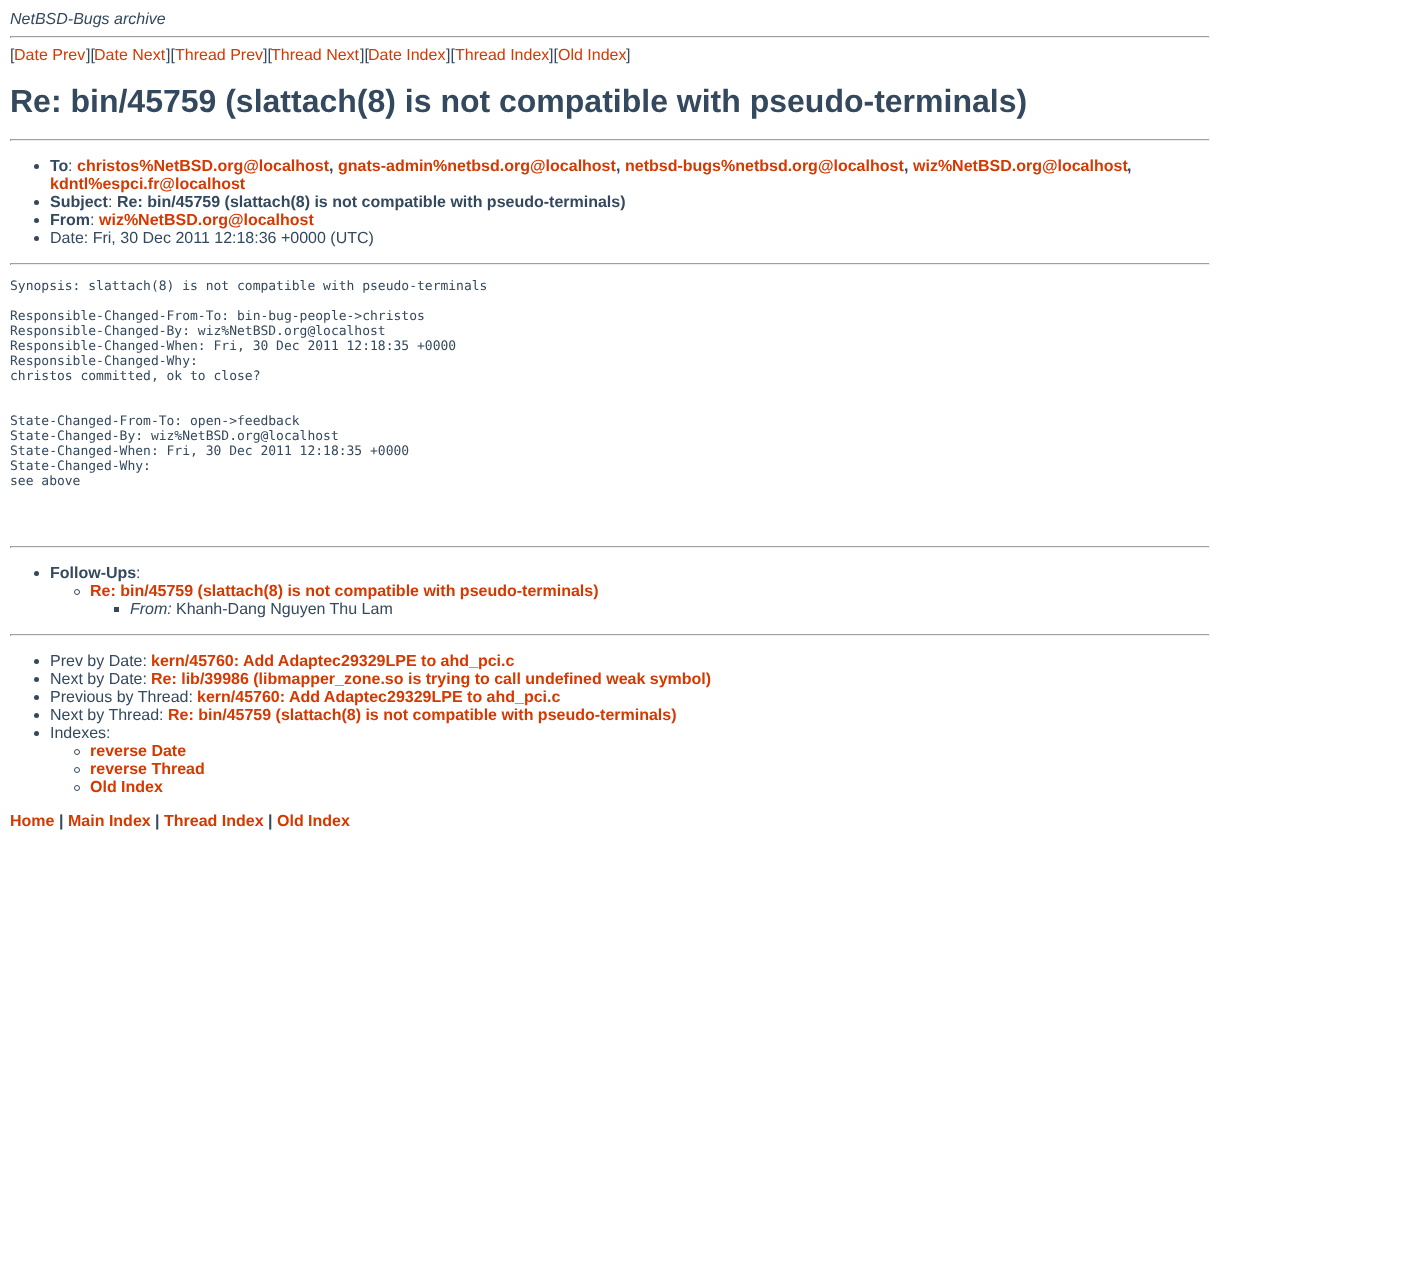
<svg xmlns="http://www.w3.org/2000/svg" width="1427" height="1280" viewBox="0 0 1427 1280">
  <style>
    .t1 { font: italic 16px Liberation Sans; fill: #34495e; }
    .t2 { font: 16px Liberation Sans; fill: #34495e; }
    .t3 { font: 16px Liberation Sans; fill: #d43900; }
    .t4 { font: bold 32px Liberation Sans; fill: #34495e; }
    .t5 { font: bold 16px Liberation Sans; fill: #34495e; }
    .t6 { font: bold 16px Liberation Sans; fill: #d43900; }
    .t7 { font: 13px DejaVu Sans Mono; fill: #34495e; }
  </style>
  <rect width="100%" height="100%" fill="#fff"/>
  <text x="10" y="24" class="t1">NetBSD-Bugs archive</text>
  <rect x="10" y="36" width="1200" height="1" fill="#9f9f9f"/>
  <rect x="1209" y="36" width="1" height="2" fill="#eee"/>
  <rect x="10" y="37" width="1200" height="1" fill="#eee"/>
  <rect x="10" y="36" width="1" height="2" fill="#9f9f9f"/>
  <text x="10" y="60" class="t2">[</text>
  <text x="14" y="60" class="t3">Date Prev</text>
  <text x="86" y="60" class="t2">][</text>
  <text x="94" y="60" class="t3">Date Next</text>
  <text x="166" y="60" class="t2">][</text>
  <text x="175" y="60" class="t3">Thread Prev</text>
  <text x="263" y="60" class="t2">][</text>
  <text x="271" y="60" class="t3">Thread Next</text>
  <text x="360" y="60" class="t2">][</text>
  <text x="368" y="60" class="t3">Date Index</text>
  <text x="446" y="60" class="t2">][</text>
  <text x="455" y="60" class="t3">Thread Index</text>
  <text x="549" y="60" class="t2">][</text>
  <text x="558" y="60" class="t3">Old Index</text>
  <text x="626" y="60" class="t2">]</text>
  <text x="10" y="112" class="t4">Re: bin/45759 (slattach(8) is not compatible with pseudo-terminals)</text>
  <rect x="10" y="139" width="1200" height="1" fill="#9f9f9f"/>
  <rect x="1209" y="139" width="1" height="2" fill="#eee"/>
  <rect x="10" y="140" width="1200" height="1" fill="#eee"/>
  <rect x="10" y="139" width="1" height="2" fill="#9f9f9f"/>
  <circle cx="36.5" cy="166.5" r="2.5" fill="#34495e"/>
  <text x="50" y="171" class="t5">To</text>
  <text x="68" y="171" class="t2">:</text>
  <text x="77" y="171" class="t6">christos%NetBSD.org@localhost</text>
  <text x="338" y="171" class="t6">gnats-admin%netbsd.org@localhost</text>
  <text x="625" y="171" class="t6">netbsd-bugs%netbsd.org@localhost</text>
  <text x="913" y="171" class="t6">wiz%NetBSD.org@localhost</text>
  <text x="329" y="171" class="t5">,</text>
  <text x="616" y="171" class="t5">,</text>
  <text x="904" y="171" class="t5">,</text>
  <text x="1127" y="171" class="t5">,</text>
  <text x="50" y="189" class="t6">kdntl%espci.fr@localhost</text>
  <circle cx="36.5" cy="202.5" r="2.5" fill="#34495e"/>
  <text x="50" y="207" class="t5">Subject</text>
  <text x="108" y="207" class="t2">:</text>
  <text x="117" y="207" class="t5">Re: bin/45759 (slattach(8) is not compatible with pseudo-terminals)</text>
  <circle cx="36.5" cy="220.5" r="2.5" fill="#34495e"/>
  <text x="50" y="225" class="t5">From</text>
  <text x="90" y="225" class="t2">:</text>
  <text x="99" y="225" class="t6">wiz%NetBSD.org@localhost</text>
  <circle cx="36.5" cy="238.5" r="2.5" fill="#34495e"/>
  <text x="50" y="243" class="t2">Date: Fri, 30 Dec 2011 12:18:36 +0000 (UTC)</text>
  <rect x="10" y="263" width="1200" height="1" fill="#9f9f9f"/>
  <rect x="1209" y="263" width="1" height="2" fill="#eee"/>
  <rect x="10" y="264" width="1200" height="1" fill="#eee"/>
  <rect x="10" y="263" width="1" height="2" fill="#9f9f9f"/>
  <text x="10" y="290" class="t7">Synopsis: slattach(8) is not compatible with pseudo-terminals</text>
  <text x="10" y="320" class="t7">Responsible-Changed-From-To: bin-bug-people-&gt;christos</text>
  <text x="10" y="335" class="t7">Responsible-Changed-By: wiz%NetBSD.org@localhost</text>
  <text x="10" y="350" class="t7">Responsible-Changed-When: Fri, 30 Dec 2011 12:18:35 +0000</text>
  <text x="10" y="365" class="t7">Responsible-Changed-Why:</text>
  <text x="10" y="380" class="t7">christos committed, ok to close?</text>
  <text x="10" y="425" class="t7">State-Changed-From-To: open-&gt;feedback</text>
  <text x="10" y="440" class="t7">State-Changed-By: wiz%NetBSD.org@localhost</text>
  <text x="10" y="455" class="t7">State-Changed-When: Fri, 30 Dec 2011 12:18:35 +0000</text>
  <text x="10" y="470" class="t7">State-Changed-Why:</text>
  <text x="10" y="485" class="t7">see above</text>
  <rect x="10" y="546" width="1200" height="1" fill="#9f9f9f"/>
  <rect x="1209" y="546" width="1" height="2" fill="#eee"/>
  <rect x="10" y="547" width="1200" height="1" fill="#eee"/>
  <rect x="10" y="546" width="1" height="2" fill="#9f9f9f"/>
  <circle cx="36.5" cy="573.5" r="2.5" fill="#34495e"/>
  <text x="50" y="578" class="t5">Follow-Ups</text>
  <text x="136" y="578" class="t2">:</text>
  <circle cx="77" cy="592" r="2.5" fill="none" stroke="#34495e"/>
  <text x="90" y="596" class="t6">Re: bin/45759 (slattach(8) is not compatible with pseudo-terminals)</text>
  <rect x="114" y="607" width="5" height="5" fill="#34495e"/>
  <text x="130" y="614" class="t1">From:</text>
  <text x="176" y="614" class="t2">Khanh-Dang Nguyen Thu Lam</text>
  <rect x="10" y="634" width="1200" height="1" fill="#9f9f9f"/>
  <rect x="1209" y="634" width="1" height="2" fill="#eee"/>
  <rect x="10" y="635" width="1200" height="1" fill="#eee"/>
  <rect x="10" y="634" width="1" height="2" fill="#9f9f9f"/>
  <circle cx="36.5" cy="661.5" r="2.5" fill="#34495e"/>
  <text x="50" y="666" class="t2">Prev by Date:</text>
  <text x="151" y="666" class="t6">kern/45760: Add Adaptec29329LPE to ahd_pci.c</text>
  <circle cx="36.5" cy="679.5" r="2.5" fill="#34495e"/>
  <text x="50" y="684" class="t2">Next by Date:</text>
  <text x="151" y="684" class="t6">Re: lib/39986 (libmapper_zone.so is trying to call undefined weak symbol)</text>
  <circle cx="36.5" cy="697.5" r="2.5" fill="#34495e"/>
  <text x="50" y="702" class="t2">Previous by Thread:</text>
  <text x="197" y="702" class="t6">kern/45760: Add Adaptec29329LPE to ahd_pci.c</text>
  <circle cx="36.5" cy="715.5" r="2.5" fill="#34495e"/>
  <text x="50" y="720" class="t2">Next by Thread:</text>
  <text x="168" y="720" class="t6">Re: bin/45759 (slattach(8) is not compatible with pseudo-terminals)</text>
  <circle cx="36.5" cy="733.5" r="2.5" fill="#34495e"/>
  <text x="50" y="738" class="t2">Indexes:</text>
  <circle cx="77" cy="752" r="2.5" fill="none" stroke="#34495e"/>
  <text x="90" y="756" class="t6">reverse Date</text>
  <circle cx="77" cy="770" r="2.5" fill="none" stroke="#34495e"/>
  <text x="90" y="774" class="t6">reverse Thread</text>
  <circle cx="77" cy="788" r="2.5" fill="none" stroke="#34495e"/>
  <text x="90" y="792" class="t6">Old Index</text>
  <text x="10" y="826" class="t6">Home</text>
  <text x="59" y="826" class="t5">|</text>
  <text x="68" y="826" class="t6">Main Index</text>
  <text x="155" y="826" class="t5">|</text>
  <text x="164" y="826" class="t6">Thread Index</text>
  <text x="268" y="826" class="t5">|</text>
  <text x="277" y="826" class="t6">Old Index</text>
</svg>
